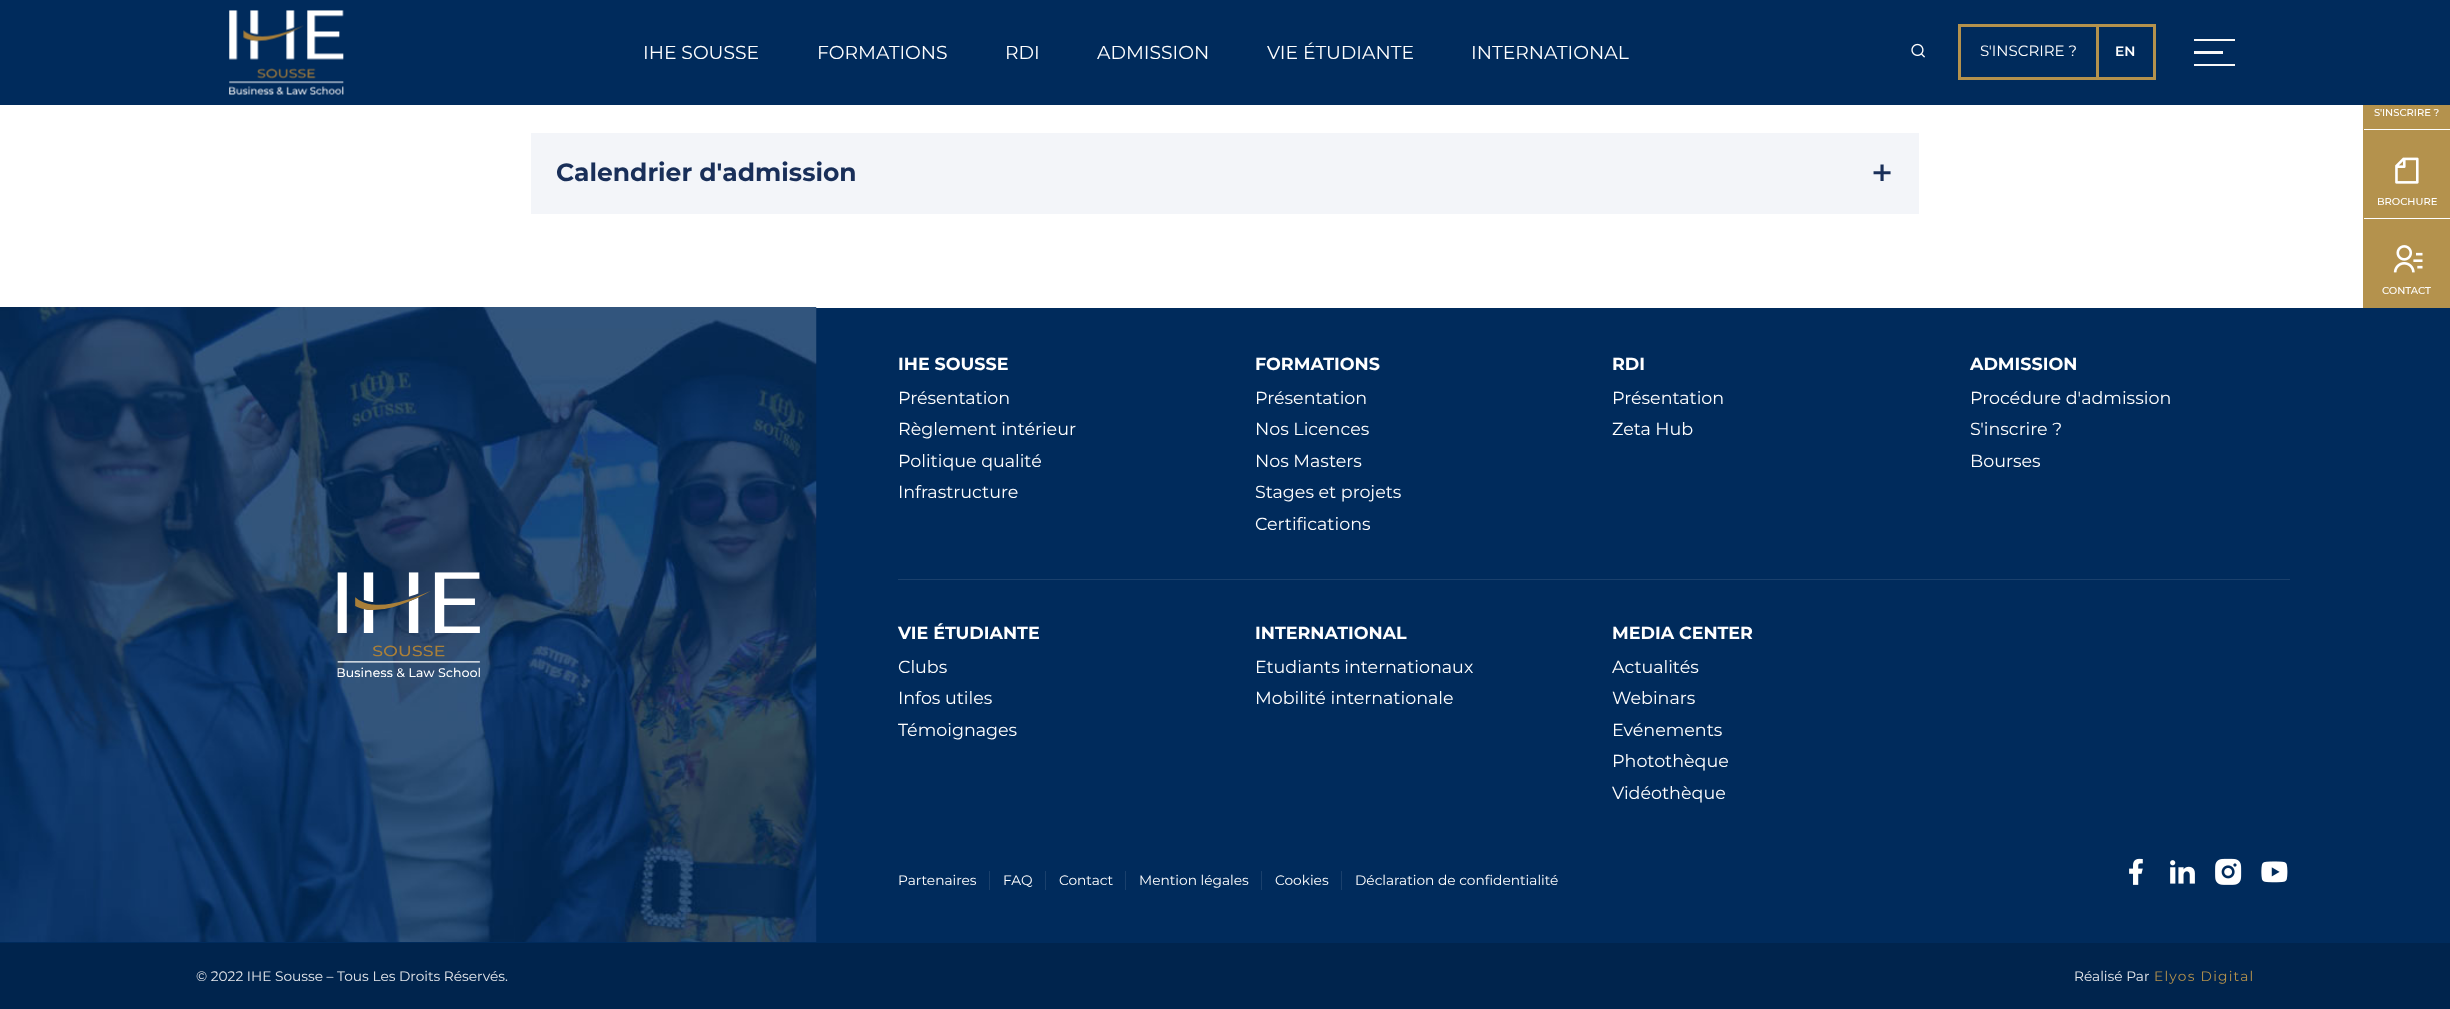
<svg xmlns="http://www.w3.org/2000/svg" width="2450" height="1009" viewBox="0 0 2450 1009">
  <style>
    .t1 { font: 18.75px Montserrat; fill: #fff; }
    .t2 { font: 15px Montserrat; fill: #fff; }
    .t3 { font: 600 13.75px Montserrat; fill: #fff; }
    .t4 { font: bold 25px Montserrat; fill: #192f59; }
    .t5 { font: 500 38px Montserrat; letter-spacing: 1px; fill: #192f59; }
    .t6 { font: 500 10px Montserrat; fill: #fff; }
    .t7 { font: bold 17.5px Montserrat; fill: #fff; }
    .t8 { font: 17.5px Montserrat; fill: #fff; }
    .t9 { font: 13.75px Montserrat; fill: #fff; }
    .t10 { font: 13.75px Montserrat; fill: #e6e9ed; }
    .t11 { font: 13.75px Montserrat; letter-spacing: 1.25px; fill: #b4924d; }
  </style>
  <defs>
    <clipPath id="clip1"><rect x="2194" y="39" width="41" height="27"/></clipPath>
  </defs>
  <rect width="100%" height="100%" fill="#fff"/>
  <rect x="0" y="0" width="2450" height="105" fill="#002b5c"/>
  <image x="229" y="10" width="115" height="85" href="images/1.png"/>
  <text x="643" y="59" class="t1">IHE SOUSSE</text>
  <text x="817" y="59" class="t1">FORMATIONS</text>
  <text x="1005" y="59" class="t1">RDI</text>
  <text x="1097" y="59" class="t1">ADMISSION</text>
  <text x="1267" y="59" class="t1">VIE ÉTUDIANTE</text>
  <text x="1471" y="59" class="t1">INTERNATIONAL</text>
  <image x="1911" y="43" width="14" height="15" href="images/2.png"/>
  <rect x="1959.5" y="25.5" width="195" height="53" fill="none" stroke="#b4924d" stroke-width="3"/>
  <text x="1980" y="56" class="t2">S'INSCRIRE ?</text>
  <text x="2115" y="56" class="t3">EN</text>
  <rect x="2096" y="25" width="3" height="53" fill="#b4924d"/>
  <g clip-path="url(#clip1)">
    <path d="M2191 39H2238V41H2191ZM2191 51H2223V54H2191ZM2191 64H2238V66H2191Z" fill="#f9f9f9" fill-rule="evenodd"/>
  </g>
  <rect x="531" y="133" width="1388" height="81" fill="#f3f5f9"/>
  <text x="556" y="181" class="t4">Calendrier d'admission</text>
  <text x="1871" y="186" class="t5">+</text>
  <rect x="2364" y="105" width="86" height="24" fill="#b4924d"/>
  <rect x="2363" y="105" width="1" height="114" fill="#b4924d"/>
  <text x="2374" y="116" class="t6">S'INSCRIRE ?</text>
  <rect x="2364" y="130" width="86" height="88" fill="#b4924d"/>
  <image x="2395" y="157" width="24" height="27" href="images/3.png"/>
  <text x="2377" y="205" class="t6">BROCHURE</text>
  <rect x="2363" y="219" width="87" height="89" fill="#b4924d"/>
  <image x="2393" y="245" width="30" height="28" href="images/4.png"/>
  <text x="2382" y="294" class="t6">CONTACT</text>
  <rect x="0" y="308" width="2450" height="635" fill="#002b5c"/>
  <image x="0" y="307" width="817" height="635" href="images/5.png"/>
  <image x="337" y="572" width="143" height="105" href="images/6.png"/>
  <rect x="898" y="579" width="1392" height="1" fill="#1a406c"/>
  <text x="898" y="370" class="t7">IHE SOUSSE</text>
  <text x="898" y="404" class="t8">Présentation</text>
  <text x="898" y="435" class="t8">Règlement intérieur</text>
  <text x="898" y="467" class="t8">Politique qualité</text>
  <text x="898" y="498" class="t8">Infrastructure</text>
  <text x="1255" y="370" class="t7">FORMATIONS</text>
  <text x="1255" y="404" class="t8">Présentation</text>
  <text x="1255" y="435" class="t8">Nos Licences</text>
  <text x="1255" y="467" class="t8">Nos Masters</text>
  <text x="1255" y="498" class="t8">Stages et projets</text>
  <text x="1255" y="530" class="t8">Certifications</text>
  <text x="1612" y="370" class="t7">RDI</text>
  <text x="1612" y="404" class="t8">Présentation</text>
  <text x="1612" y="435" class="t8">Zeta Hub</text>
  <text x="1970" y="370" class="t7">ADMISSION</text>
  <text x="1970" y="404" class="t8">Procédure d'admission</text>
  <text x="1970" y="435" class="t8">S'inscrire ?</text>
  <text x="1970" y="467" class="t8">Bourses</text>
  <text x="898" y="639" class="t7">VIE ÉTUDIANTE</text>
  <text x="898" y="673" class="t8">Clubs</text>
  <text x="898" y="704" class="t8">Infos utiles</text>
  <text x="898" y="736" class="t8">Témoignages</text>
  <text x="1255" y="639" class="t7">INTERNATIONAL</text>
  <text x="1255" y="673" class="t8">Etudiants internationaux</text>
  <text x="1255" y="704" class="t8">Mobilité internationale</text>
  <text x="1612" y="639" class="t7">MEDIA CENTER</text>
  <text x="1612" y="673" class="t8">Actualités</text>
  <text x="1612" y="704" class="t8">Webinars</text>
  <text x="1612" y="736" class="t8">Evénements</text>
  <text x="1612" y="767" class="t8">Photothèque</text>
  <text x="1612" y="799" class="t8">Vidéothèque</text>
  <rect x="989" y="871" width="1" height="19" fill="#1a406c"/>
  <text x="898" y="885" class="t9">Partenaires</text>
  <rect x="1045" y="871" width="1" height="19" fill="#1a406c"/>
  <text x="1003" y="885" class="t9">FAQ</text>
  <rect x="1125" y="871" width="1" height="19" fill="#1a406c"/>
  <text x="1059" y="885" class="t9">Contact</text>
  <rect x="1261" y="871" width="1" height="19" fill="#1a406c"/>
  <text x="1139" y="885" class="t9">Mention légales</text>
  <rect x="1341" y="871" width="1" height="19" fill="#1a406c"/>
  <text x="1275" y="885" class="t9">Cookies</text>
  <text x="1355" y="885" class="t9">Déclaration de confidentialité</text>
  <image x="2129" y="858" width="14" height="27" href="images/7.png"/>
  <image x="2170" y="860" width="25" height="24" href="images/8.png"/>
  <image x="2215" y="858" width="27" height="27" href="images/9.png"/>
  <image x="2261" y="861" width="27" height="22" href="images/10.png"/>
  <rect x="0" y="943" width="2450" height="66" fill="#00244d"/>
  <text x="196" y="981" class="t10">© 2022 IHE Sousse – Tous Les Droits Réservés.</text>
  <text x="2074" y="981" class="t10">Réalisé Par</text>
  <text x="2154" y="981" class="t11">Elyos Digital</text>
</svg>
